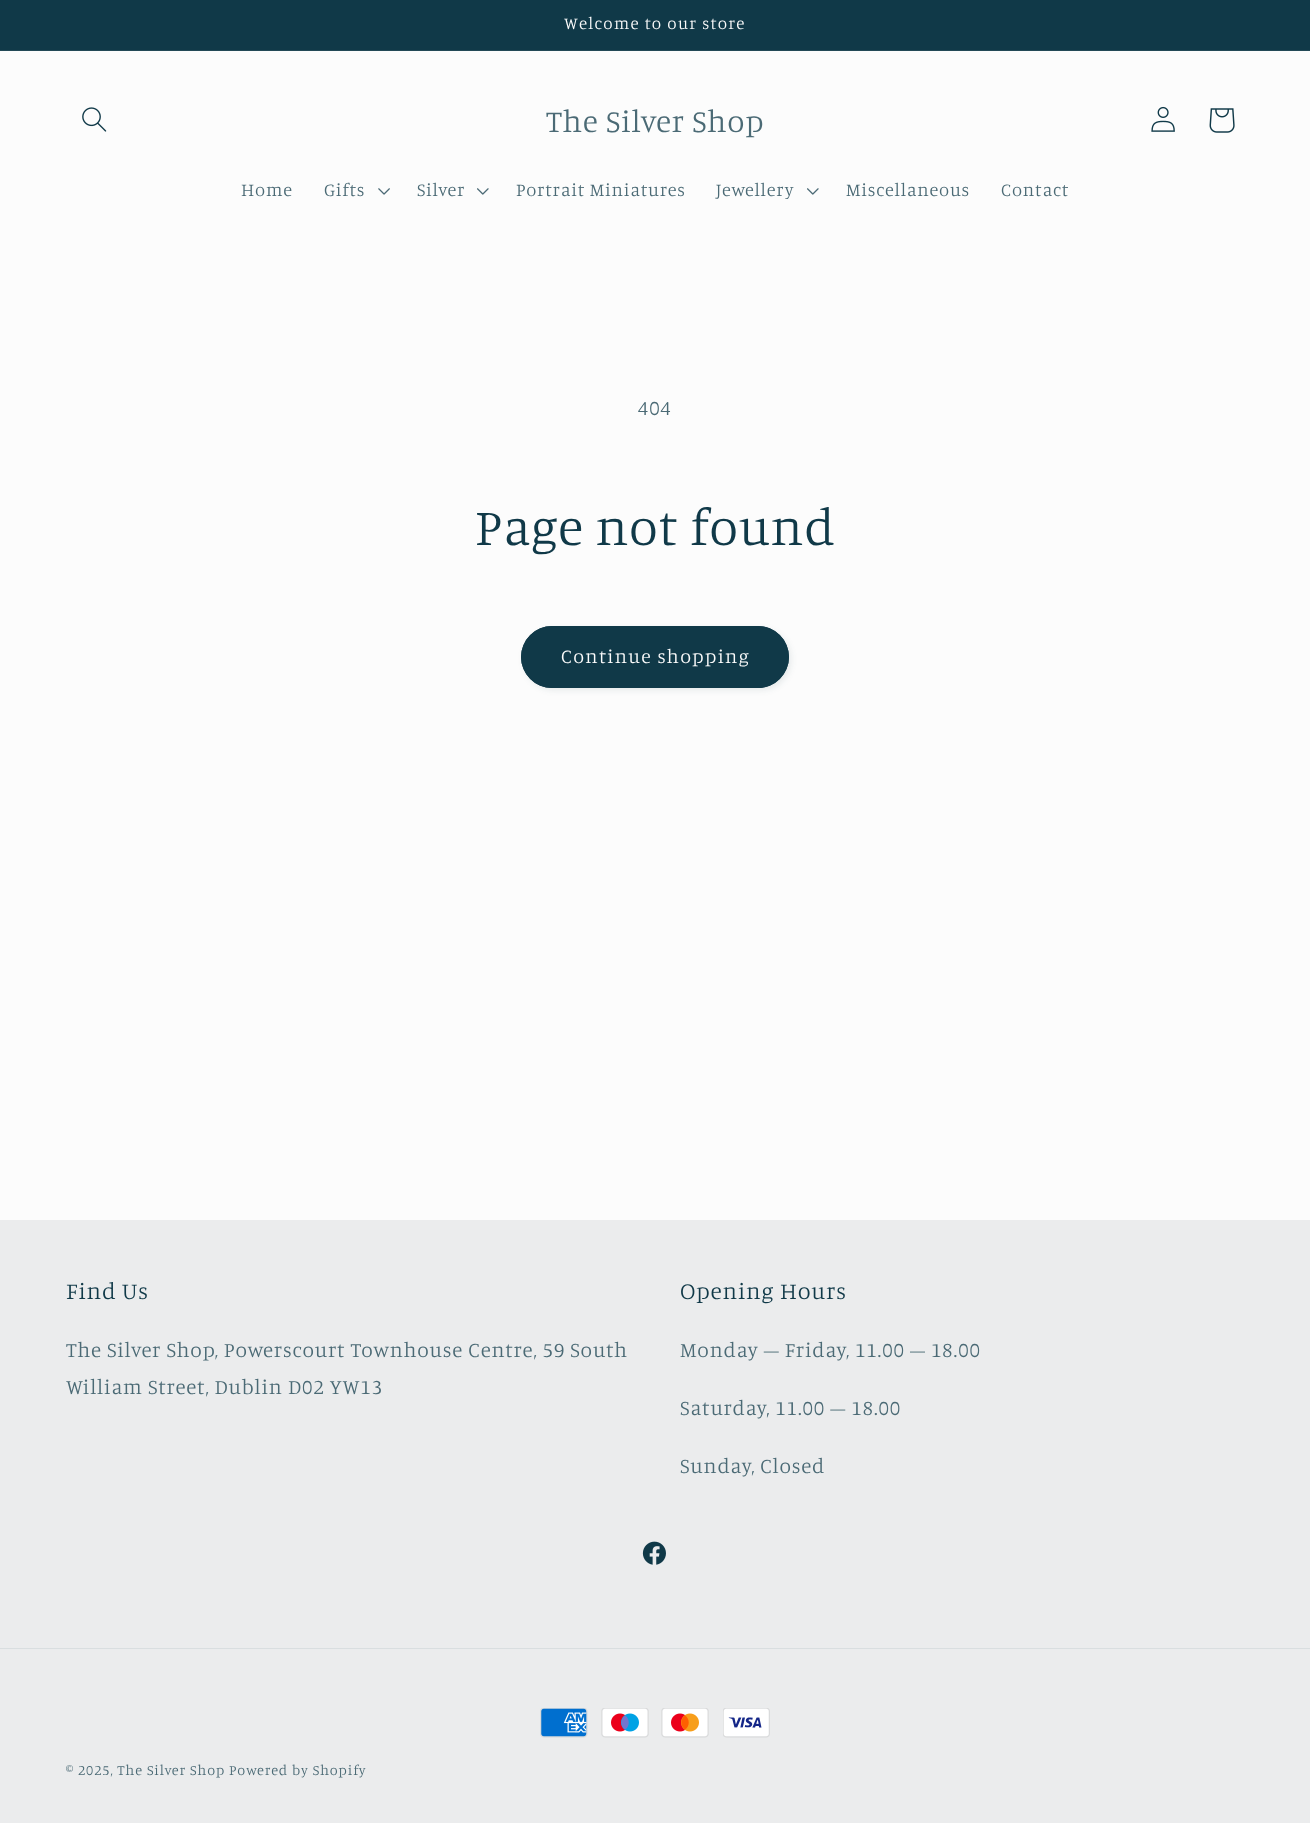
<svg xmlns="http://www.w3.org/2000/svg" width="1310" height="1823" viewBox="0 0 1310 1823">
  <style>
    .t1 { font: 300 17px Manuale; letter-spacing: 1.3px; fill: #fcfcfc; }
    .t2 { font: 300 31.5px Manuale; letter-spacing: 0.8px; fill: #4b6a75; }
    .t3 { font: 300 18.4px Manuale; letter-spacing: 0.8px; fill: #4b6a75; }
    .t4 { font: 300 21px Manuale; letter-spacing: 0.8px; fill: #4b6a75; }
    .t5 { font: 300 52.5px Manuale; letter-spacing: 0.8px; fill: #103948; }
    .t6 { font: 300 19.75px Manuale; letter-spacing: 1.3px; fill: #fcfcfc; }
    .t7 { font: 300 23.5px Manuale; letter-spacing: 0.8px; fill: #103948; }
    .t8 { font: 300 14.4px Manuale; letter-spacing: 0.9px; fill: #4b6a75; }
  </style>
  <rect width="100%" height="100%" fill="#fcfcfc"/>
  <rect x="0" y="0" width="1310" height="50" fill="#103948"/>
  <rect x="0" y="50" width="1310" height="1" fill="#234956"/>
  <text x="564" y="29" class="t1">Welcome to our store</text>
  <image x="82" y="107" width="25" height="25" href="images/1.png"/>
  <text x="546" y="132" class="t2">The Silver Shop</text>
  <image x="1151" y="106" width="24" height="26" href="images/2.png"/>
  <image x="1209" y="108" width="26" height="25" href="images/3.png"/>
  <text x="241" y="196" class="t3">Home</text>
  <text x="324" y="196" class="t3">Gifts</text>
  <image x="378" y="188" width="12" height="7" href="images/4.png"/>
  <text x="417" y="196" class="t3">Silver</text>
  <image x="477" y="188" width="12" height="7" href="images/5.png"/>
  <text x="516" y="196" class="t3">Portrait Miniatures</text>
  <text x="716" y="196" class="t3">Jewellery</text>
  <image x="807" y="188" width="12" height="7" href="images/5.png"/>
  <text x="846" y="196" class="t3">Miscellaneous</text>
  <text x="1001" y="196" class="t3">Contact</text>
  <text x="638" y="415" class="t4">404</text>
  <text x="475" y="545" class="t5">Page not found</text>
  <rect x="524" y="629" width="267" height="61" rx="30.5" fill="#1039481a" filter="blur(3px)"/>
  <rect x="521" y="626" width="268" height="62" rx="31" fill="#103948"/>
  <rect x="521.5" y="626.5" width="267" height="61" rx="30.5" fill="none" stroke="#103948"/>
  <text x="561" y="663" class="t6">Continue shopping</text>
  <rect x="0" y="1220" width="1310" height="603" fill="#ebeced"/>
  <text x="66" y="1299" class="t7">Find Us</text>
  <text x="66" y="1357" class="t4">The Silver Shop, Powerscourt Townhouse Centre, 59 South</text>
  <text x="66" y="1394" class="t4">William Street, Dublin D02 YW13</text>
  <text x="680" y="1299" class="t7">Opening Hours</text>
  <text x="680" y="1357" class="t4">Monday – Friday, 11.00 – 18.00</text>
  <text x="680" y="1415" class="t4">Saturday, 11.00 – 18.00</text>
  <text x="680" y="1473" class="t4">Sunday, Closed</text>
  <image x="642" y="1541" width="24" height="24" href="images/6.png"/>
  <rect x="0" y="1648" width="1310" height="1" fill="#d9dee0"/>
  <image x="540" y="1708" width="48" height="30" href="images/7.png"/>
  <image x="601" y="1708" width="48" height="30" href="images/8.png"/>
  <image x="661" y="1708" width="48" height="30" href="images/9.png"/>
  <image x="723" y="1708" width="47" height="30" href="images/10.png"/>
  <text x="66" y="1775" class="t8">© 2025, The Silver Shop Powered by Shopify</text>
</svg>
